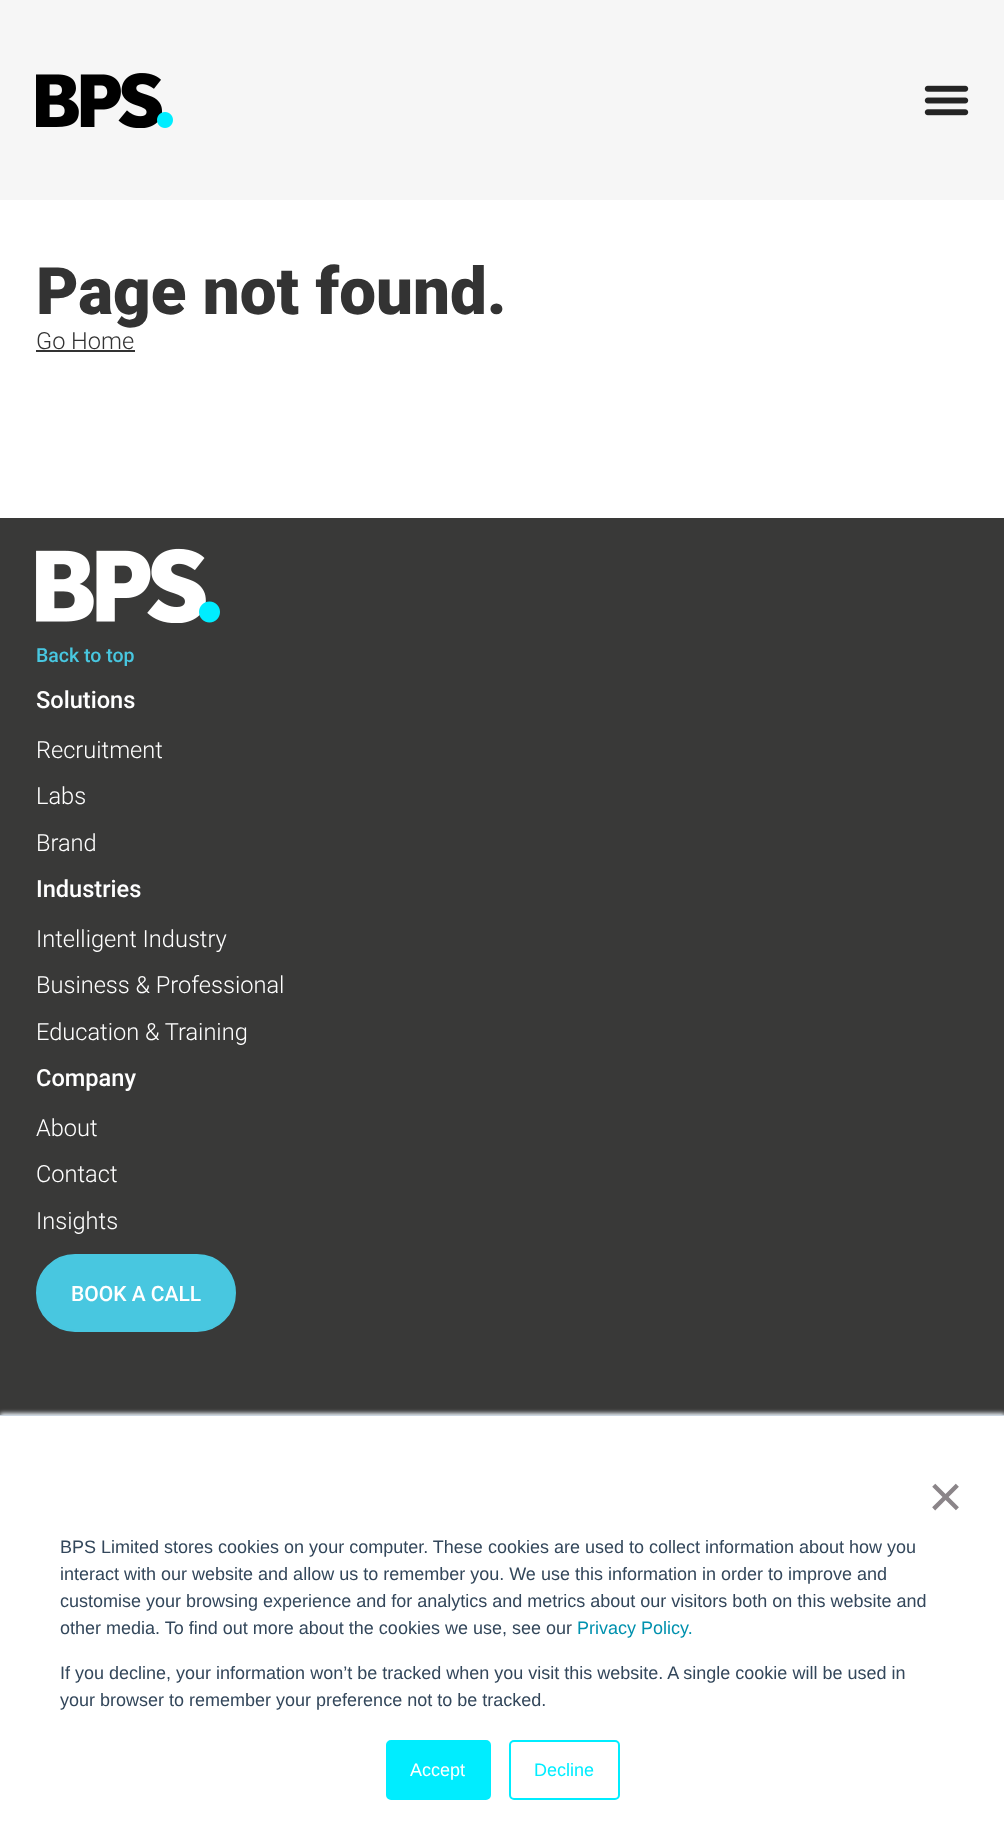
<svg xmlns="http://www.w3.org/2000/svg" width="1004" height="1839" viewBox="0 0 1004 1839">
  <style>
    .t1 { font: 900 65.5px Roboto; fill: #333; }
    .t2 { font: 300 23.6px Roboto; fill: #333; }
    .t3 { font: 500 19.5px Roboto; fill: #48c7e0; }
    .t4 { font: 500 23.6px Roboto; fill: #fff; }
    .t5 { font: 300 23.6px Roboto; fill: #fff; }
    .t6 { font: 500 21px Roboto; fill: #fff; }
    .t7 { font: 60px Liberation Sans; fill: #8b8589; }
    .t8 { font: 18px Liberation Sans; fill: #33475b; }
    .t9 { font: 18px Liberation Sans; fill: #0091ae; }
    .t10 { font: 18px Liberation Sans; fill: #fff; }
    .t11 { font: 18px Liberation Sans; fill: #00edff; }
  </style>
  <rect width="100%" height="100%" fill="#fff"/>
  <rect x="0" y="0" width="1004" height="200" fill="#f6f6f6"/>
  <image x="36" y="73" width="137" height="55" href="images/1.png"/>
  <image x="924" y="85" width="45" height="31" href="images/2.png"/>
  <text x="36" y="314" class="t1">Page not found.</text>
  <text x="36" y="349" class="t2">Go Home</text>
  <rect x="36" y="350" width="99" height="2" fill="#333"/>
  <rect x="0" y="518" width="1004" height="897" fill="#393938"/>
  <image x="36" y="548" width="184" height="75" href="images/3.png"/>
  <text x="36" y="662" class="t3">Back to top</text>
  <text x="36" y="708" class="t4">Solutions</text>
  <text x="36" y="758" class="t5">Recruitment</text>
  <text x="36" y="804" class="t5">Labs</text>
  <text x="36" y="851" class="t5">Brand</text>
  <text x="36" y="897" class="t4">Industries</text>
  <text x="36" y="947" class="t5">Intelligent Industry</text>
  <text x="36" y="993" class="t5">Business &amp; Professional</text>
  <text x="36" y="1040" class="t5">Education &amp; Training</text>
  <text x="36" y="1086" class="t4">Company</text>
  <text x="36" y="1136" class="t5">About</text>
  <text x="36" y="1182" class="t5">Contact</text>
  <text x="36" y="1229" class="t5">Insights</text>
  <rect x="37" y="1255" width="198" height="76" rx="38" fill="#48c7e0" stroke="#48c7e0" stroke-width="2"/>
  <text x="71" y="1301" class="t6">BOOK A CALL</text>
  <rect x="0" y="1413" width="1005" height="425" fill="#eaf0f6" filter="blur(2px)"/>
  <rect x="0" y="1415" width="1004" height="1" fill="#cbd6e2"/>
  <rect x="0" y="1416" width="1004" height="423" fill="#fff"/>
  <text x="928" y="1517" class="t7">×</text>
  <text x="60" y="1553" class="t8">BPS Limited stores cookies on your computer. These cookies are used to collect information about how you</text>
  <text x="60" y="1580" class="t8">interact with our website and allow us to remember you. We use this information in order to improve and</text>
  <text x="60" y="1607" class="t8">customise your browsing experience and for analytics and metrics about our visitors both on this website and</text>
  <text x="60" y="1634" class="t8">other media. To find out more about the cookies we use, see our</text>
  <text x="577" y="1634" class="t9">Privacy Policy.</text>
  <text x="60" y="1679" class="t8">If you decline, your information won’t be tracked when you visit this website. A single cookie will be used in</text>
  <text x="60" y="1706" class="t8">your browser to remember your preference not to be tracked.</text>
  <rect x="387" y="1741" width="103" height="58" rx="4" fill="#00edff" stroke="#00edff" stroke-width="2"/>
  <text x="410" y="1776" class="t10">Accept</text>
  <rect x="510" y="1741" width="109" height="58" rx="4" fill="none" stroke="#00edff" stroke-width="2"/>
  <text x="534" y="1776" class="t11">Decline</text>
</svg>
